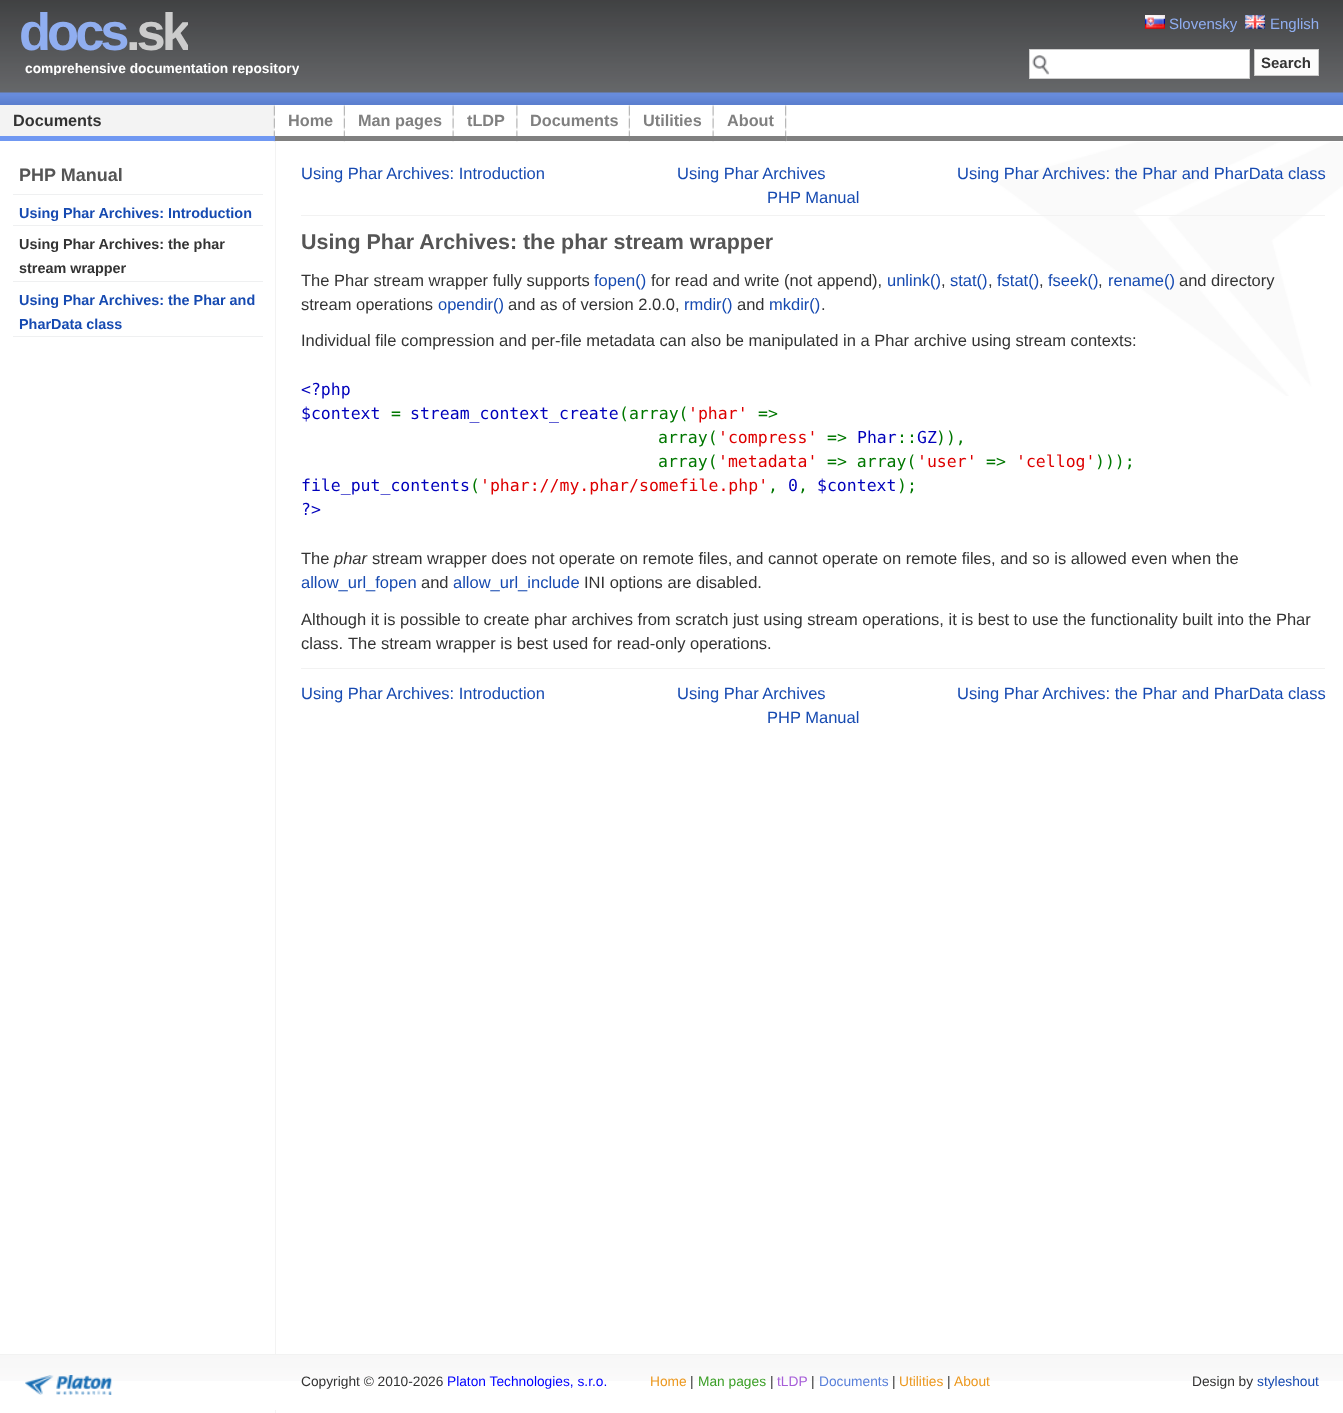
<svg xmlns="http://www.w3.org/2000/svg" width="1343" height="1413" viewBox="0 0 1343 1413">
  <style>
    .t1 { font: bold 52.5px Liberation Sans; letter-spacing: -4px; fill: #90aef0; }
    .t2 { font: bold 52.5px Liberation Sans; letter-spacing: -4px; fill: #ccc; }
    .t3 { font: 15px Liberation Sans; fill: #90aef0; }
    .t4 { font: bold 15px Liberation Sans; fill: #333; }
    .t5 { font: bold 13.75px Liberation Sans; fill: #fff; }
    .t6 { font: bold 16.25px Liberation Sans; fill: #333; }
    .t7 { font: bold 16.25px Liberation Sans; fill: #808080; }
    .t8 { font: bold 18px Liberation Sans; fill: #555; }
    .t9 { font: bold 14.4px Liberation Sans; fill: #164ab1; }
    .t10 { font: bold 14.4px Liberation Sans; fill: #333; }
    .t11 { font: 16.5px Liberation Sans; fill: #164ab1; }
    .t12 { font: bold 21.45px Liberation Sans; fill: #555; }
    .t13 { font: 16.5px Liberation Sans; fill: #333; }
    .t14 { font: 16.5px DejaVu Sans Mono; fill: #00b; }
    .t15 { font: 16.5px DejaVu Sans Mono; fill: #070; }
    .t16 { font: 16.5px DejaVu Sans Mono; fill: #d00; }
    .t17 { font: italic 16.5px Liberation Sans; fill: #333; }
    .t18 { font: 13.75px Liberation Sans; fill: #333; }
    .t19 { font: 13.75px Liberation Sans; fill: #00f; }
    .t20 { font: 13.75px Liberation Sans; fill: #ec981f; }
    .t21 { font: 13.75px Liberation Sans; fill: #3da028; }
    .t22 { font: 13.75px Liberation Sans; fill: #a75ed8; }
    .t23 { font: 13.75px Liberation Sans; fill: #5a81da; }
    .t24 { font: 13.75px Liberation Sans; fill: #164ab1; }
  </style>
  <defs>
    <clipPath id="clip1"><rect x="19" y="3" width="169" height="60"/></clipPath>
    <clipPath id="clip2"><rect x="25" y="60" width="274" height="15"/></clipPath>
  </defs>
  <rect width="100%" height="100%" fill="#fff"/>
  <rect x="275" y="141" width="1" height="1272" fill="#f3f3f3"/>
  <image x="0" y="0" width="1343" height="105" href="images/1.png"/>
  <text x="19" y="50" class="t1">docs</text>
  <g clip-path="url(#clip1)">
    <text x="126" y="50" class="t2">.sk</text>
  </g>
  <image x="1145" y="15" width="20" height="14" href="images/2.png"/>
  <text x="1169" y="29" class="t3">Slovensky</text>
  <image x="1245" y="15" width="20" height="14" href="images/3.png"/>
  <text x="1270" y="29" class="t3">English</text>
  <rect x="1030" y="50" width="219" height="28" fill="#fff"/>
  <image x="1032" y="55" width="18" height="20" href="images/4.png"/>
  <rect x="1029.5" y="49.5" width="220" height="29" fill="none" stroke="#ccc"/>
  <rect x="1254.5" y="49.5" width="64" height="26" fill="#fcfcfc" stroke="#ccc"/>
  <text x="1261" y="68" class="t4">Search</text>
  <g clip-path="url(#clip2)">
    <text x="25" y="73" class="t5">comprehensive documentation repository</text>
  </g>
  <rect x="786" y="136" width="557" height="5" fill="#808080"/>
  <rect x="0" y="105" width="274" height="31" fill="#f3f3f3"/>
  <image x="273" y="105" width="2" height="37" href="images/5.png"/>
  <rect x="0" y="136" width="275" height="5" fill="#7098f2"/>
  <text x="13" y="126" class="t6">Documents</text>
  <image x="343" y="105" width="2" height="37" href="images/6.png"/>
  <rect x="275" y="136" width="70" height="5" fill="#808080"/>
  <text x="288" y="126" class="t7">Home</text>
  <image x="452" y="105" width="2" height="37" href="images/7.png"/>
  <rect x="345" y="136" width="109" height="5" fill="#808080"/>
  <text x="358" y="126" class="t7">Man pages</text>
  <image x="516" y="105" width="2" height="37" href="images/8.png"/>
  <rect x="454" y="136" width="64" height="5" fill="#808080"/>
  <text x="467" y="126" class="t7">tLDP</text>
  <image x="628" y="105" width="2" height="37" href="images/6.png"/>
  <rect x="518" y="136" width="112" height="5" fill="#808080"/>
  <text x="530" y="126" class="t7">Documents</text>
  <image x="712" y="105" width="2" height="37" href="images/7.png"/>
  <rect x="630" y="136" width="84" height="5" fill="#808080"/>
  <text x="643" y="126" class="t7">Utilities</text>
  <image x="785" y="105" width="2" height="37" href="images/9.png"/>
  <rect x="714" y="136" width="72" height="5" fill="#808080"/>
  <text x="727" y="126" class="t7">About</text>
  <image x="998" y="142" width="345" height="254" href="images/10.png"/>
  <text x="19" y="181" class="t8">PHP Manual</text>
  <rect x="13" y="194" width="250" height="1" fill="#eff0f1"/>
  <rect x="13" y="225" width="250" height="1" fill="#eff0f1"/>
  <text x="19" y="218" class="t9">Using Phar Archives: Introduction</text>
  <rect x="13" y="281" width="250" height="1" fill="#eff0f1"/>
  <text x="19" y="249" class="t10">Using Phar Archives: the phar</text>
  <text x="19" y="273" class="t10">stream wrapper</text>
  <rect x="13" y="336" width="250" height="1" fill="#eff0f1"/>
  <text x="19" y="305" class="t9">Using Phar Archives: the Phar and</text>
  <text x="19" y="329" class="t9">PharData class</text>
  <text x="301" y="179" class="t11">Using Phar Archives: Introduction</text>
  <text x="677" y="179" class="t11">Using Phar Archives</text>
  <text x="957" y="179" class="t11">Using Phar Archives: the Phar and PharData class</text>
  <text x="767" y="203" class="t11">PHP Manual</text>
  <rect x="301" y="215" width="1024" height="1" fill="#f2f2f2"/>
  <text x="301" y="249" class="t12">Using Phar Archives: the phar stream wrapper</text>
  <text x="301" y="286" class="t13">The Phar stream wrapper fully supports</text>
  <text x="594" y="286" class="t11">fopen()</text>
  <text x="651" y="286" class="t13">for read and write (not append),</text>
  <text x="887" y="286" class="t11">unlink()</text>
  <text x="941" y="286" class="t13">,</text>
  <text x="950" y="286" class="t11">stat()</text>
  <text x="988" y="286" class="t13">,</text>
  <text x="997" y="286" class="t11">fstat()</text>
  <text x="1039" y="286" class="t13">,</text>
  <text x="1048" y="286" class="t11">fseek()</text>
  <text x="1098" y="286" class="t13">,</text>
  <text x="1108" y="286" class="t11">rename()</text>
  <text x="1179" y="286" class="t13">and directory</text>
  <text x="301" y="310" class="t13">stream operations</text>
  <text x="438" y="310" class="t11">opendir()</text>
  <text x="508" y="310" class="t13">and as of version 2.0.0,</text>
  <text x="684" y="310" class="t11">rmdir()</text>
  <text x="737" y="310" class="t13">and</text>
  <text x="769" y="310" class="t11">mkdir()</text>
  <text x="821" y="310" class="t13">.</text>
  <text x="301" y="346" class="t13">Individual file compression and per-file metadata can also be manipulated in a Phar archive using stream contexts:</text>
  <text x="301" y="395" class="t14">&lt;?php</text>
  <text x="301" y="419" class="t14">$context</text>
  <text x="391" y="419" class="t15">=</text>
  <text x="410" y="419" class="t14">stream_context_create</text>
  <text x="619" y="419" class="t15">(array(</text>
  <text x="688" y="419" class="t16">'phar'</text>
  <text x="758" y="419" class="t15">=&gt;</text>
  <text x="658" y="443" class="t15">array(</text>
  <text x="718" y="443" class="t16">'compress'</text>
  <text x="827" y="443" class="t15">=&gt;</text>
  <text x="857" y="443" class="t14">Phar</text>
  <text x="897" y="443" class="t15">::</text>
  <text x="917" y="443" class="t14">GZ</text>
  <text x="936" y="443" class="t15">)),</text>
  <text x="658" y="467" class="t15">array(</text>
  <text x="718" y="467" class="t16">'metadata'</text>
  <text x="827" y="467" class="t15">=&gt; array(</text>
  <text x="917" y="467" class="t16">'user'</text>
  <text x="986" y="467" class="t15">=&gt;</text>
  <text x="1016" y="467" class="t16">'cellog'</text>
  <text x="1095" y="467" class="t15">)));</text>
  <text x="301" y="491" class="t14">file_put_contents</text>
  <text x="470" y="491" class="t15">(</text>
  <text x="480" y="491" class="t16">'phar://my.phar/somefile.php'</text>
  <text x="768" y="491" class="t15">,</text>
  <text x="788" y="491" class="t14">0</text>
  <text x="798" y="491" class="t15">,</text>
  <text x="817" y="491" class="t14">$context</text>
  <text x="897" y="491" class="t15">);</text>
  <text x="301" y="515" class="t14">?&gt;</text>
  <text x="301" y="564" class="t13">The</text>
  <text x="334" y="564" class="t17">phar</text>
  <text x="372" y="564" class="t13">stream wrapper does not operate on remote files,</text>
  <text x="736" y="564" class="t13">and cannot operate on remote files, and so is allowed even when the</text>
  <text x="301" y="588" class="t11">allow_url_fopen</text>
  <text x="421" y="588" class="t13">and</text>
  <text x="453" y="588" class="t11">allow_url_include</text>
  <text x="584" y="588" class="t13">INI options are disabled.</text>
  <text x="301" y="625" class="t13">Although it is possible to create phar archives from scratch just using stream operations, it is best to use the functionality built into the Phar</text>
  <text x="301" y="649" class="t13">class.</text>
  <text x="348" y="649" class="t13">The stream wrapper is best used for read-only operations.</text>
  <rect x="301" y="668" width="1024" height="1" fill="#f2f2f2"/>
  <text x="301" y="699" class="t11">Using Phar Archives: Introduction</text>
  <text x="677" y="699" class="t11">Using Phar Archives</text>
  <text x="957" y="699" class="t11">Using Phar Archives: the Phar and PharData class</text>
  <text x="767" y="723" class="t11">PHP Manual</text>
  <rect x="275" y="1381" width="1" height="29" fill="#fff"/>
  <image x="0" y="1355" width="1343" height="26" href="images/11.png"/>
  <rect x="0" y="1354" width="1343" height="1" fill="#f2f2f2"/>
  <image x="25" y="1375" width="87" height="20" href="images/12.png"/>
  <text x="301" y="1386" class="t18">Copyright © 2010-2026</text>
  <text x="447" y="1386" class="t19">Platon Technologies, s.r.o.</text>
  <text x="650" y="1386" class="t20">Home</text>
  <text x="690" y="1386" class="t18">|</text>
  <text x="698" y="1386" class="t21">Man pages</text>
  <text x="770" y="1386" class="t18">|</text>
  <text x="777" y="1386" class="t22">tLDP</text>
  <text x="811" y="1386" class="t18">|</text>
  <text x="819" y="1386" class="t23">Documents</text>
  <text x="892" y="1386" class="t18">|</text>
  <text x="899" y="1386" class="t20">Utilities</text>
  <text x="947" y="1386" class="t18">|</text>
  <text x="954" y="1386" class="t20">About</text>
  <text x="1192" y="1386" class="t18">Design by</text>
  <text x="1257" y="1386" class="t24">styleshout</text>
</svg>
